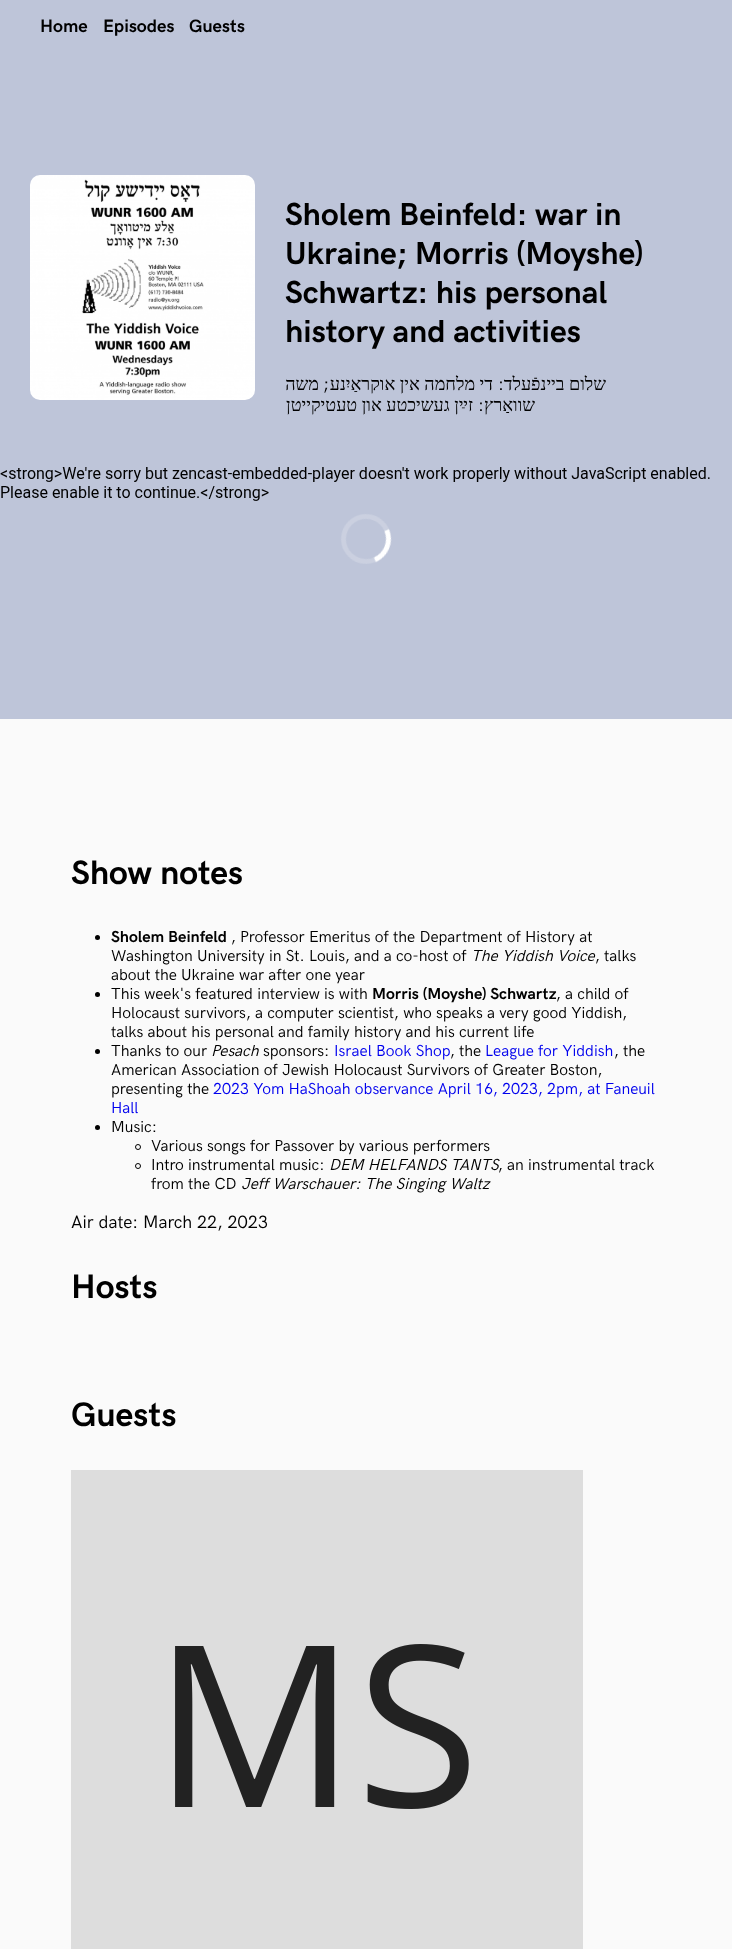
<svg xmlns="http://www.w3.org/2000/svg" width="732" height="1949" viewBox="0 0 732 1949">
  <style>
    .t1 { font: bold 18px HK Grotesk; fill: #000; }
    .t2 { font: bold 32px HK Grotesk; fill: #000; }
    .t3 { font: 18px Liberation Serif; direction: rtl; fill: #000; }
    .t4 { font: 18px HK Grotesk; direction: rtl; fill: #000; }
    .t5 { font: bold 34px HK Grotesk; fill: #000; }
    .t6 { font: bold 16px HK Grotesk; fill: #000; }
    .t7 { font: 16px HK Grotesk; fill: #000; }
    .t8 { font: italic 16px HK Grotesk; fill: #000; }
    .t9 { font: 16px HK Grotesk; fill: #00e; }
    .t10 { font: 18px HK Grotesk; fill: #000; }
  </style>
  <rect width="100%" height="100%" fill="#fafafa"/>
  <rect x="0" y="0" width="732" height="719" fill="#bec5d9"/>
  <text x="40" y="32" class="t1">Home</text>
  <text x="103" y="32" class="t1">Episodes</text>
  <text x="189" y="32" class="t1">Guests</text>
  <image x="30" y="175" width="225" height="225" href="images/1.png"/>
  <text x="285" y="225" class="t2">Sholem Beinfeld: war in</text>
  <text x="285" y="264" class="t2">Ukraine; Morris (Moyshe)</text>
  <text x="285" y="303" class="t2">Schwartz: his personal</text>
  <text x="285" y="342" class="t2">history and activities</text>
  <text x="319" y="390" class="t3">משה</text>
  <text x="329" y="390" class="t4">;</text>
  <text x="493" y="390" class="t3">די מלחמה אין אוקראַיִנע</text>
  <text x="504" y="390" class="t4">:</text>
  <text x="606" y="390" class="t3">שלום ביינפֿעלד</text>
  <text x="473" y="411" class="t3">זײַן געשיכטע און טעטיקייטן</text>
  <text x="484" y="411" class="t4">:</text>
  <text x="535" y="411" class="t3">שוואַרץ</text>
  <image x="0" y="467" width="710" height="97" href="images/2.png"/>
  <text x="71" y="884" class="t5">Show notes</text>
  <circle cx="97.5" cy="937.5" r="2.5" fill="#000"/>
  <text x="111" y="942" class="t6">Sholem Beinfeld</text>
  <text x="231" y="942" class="t7">, Professor Emeritus of the Department of History at</text>
  <text x="111" y="961" class="t7">Washington University in St. Louis, and a co-host of</text>
  <text x="471" y="961" class="t8">The Yiddish Voice</text>
  <text x="595" y="961" class="t7">, talks</text>
  <text x="111" y="980" class="t7">about the Ukraine war after one year</text>
  <circle cx="97.5" cy="994.5" r="2.5" fill="#000"/>
  <text x="111" y="999" class="t7">This week's featured interview is with</text>
  <text x="372" y="999" class="t6">Morris (Moyshe) Schwartz</text>
  <text x="556" y="999" class="t7">, a child of</text>
  <text x="111" y="1018" class="t7">Holocaust survivors, a computer scientist, who speaks a very good Yiddish,</text>
  <text x="111" y="1037" class="t7">talks about his personal and family history and his current life</text>
  <circle cx="97.5" cy="1051.5" r="2.5" fill="#000"/>
  <text x="111" y="1056" class="t7">Thanks to our</text>
  <text x="211" y="1056" class="t8">Pesach</text>
  <text x="263" y="1056" class="t7">sponsors:</text>
  <text x="334" y="1056" class="t9">Israel Book Shop</text>
  <text x="450" y="1056" class="t7">, the</text>
  <text x="485" y="1056" class="t9">League for Yiddish</text>
  <text x="614" y="1056" class="t7">, the</text>
  <text x="111" y="1075" class="t7">American Association of Jewish Holocaust Survivors of Greater Boston,</text>
  <text x="111" y="1094" class="t7">presenting the</text>
  <text x="213" y="1094" class="t9">2023 Yom HaShoah observance April 16, 2023, 2pm, at Faneuil</text>
  <text x="111" y="1113" class="t9">Hall</text>
  <circle cx="97.5" cy="1127.5" r="2.5" fill="#000"/>
  <text x="111" y="1132" class="t7">Music:</text>
  <circle cx="138" cy="1147" r="2.5" fill="none" stroke="#000"/>
  <text x="151" y="1151" class="t7">Various songs for Passover by various performers</text>
  <circle cx="138" cy="1166" r="2.5" fill="none" stroke="#000"/>
  <text x="151" y="1170" class="t7">Intro instrumental music:</text>
  <text x="329" y="1170" class="t8">DEM HELFANDS TANTS</text>
  <text x="498" y="1170" class="t7">, an instrumental track</text>
  <text x="151" y="1189" class="t7">from the CD</text>
  <text x="241" y="1189" class="t8">Jeff Warschauer: The Singing Waltz</text>
  <text x="71" y="1228" class="t10">Air date: March 22, 2023</text>
  <text x="71" y="1298" class="t5">Hosts</text>
  <text x="71" y="1426" class="t5">Guests</text>
  <image x="71" y="1470" width="512" height="479" href="images/3.png"/>
</svg>
